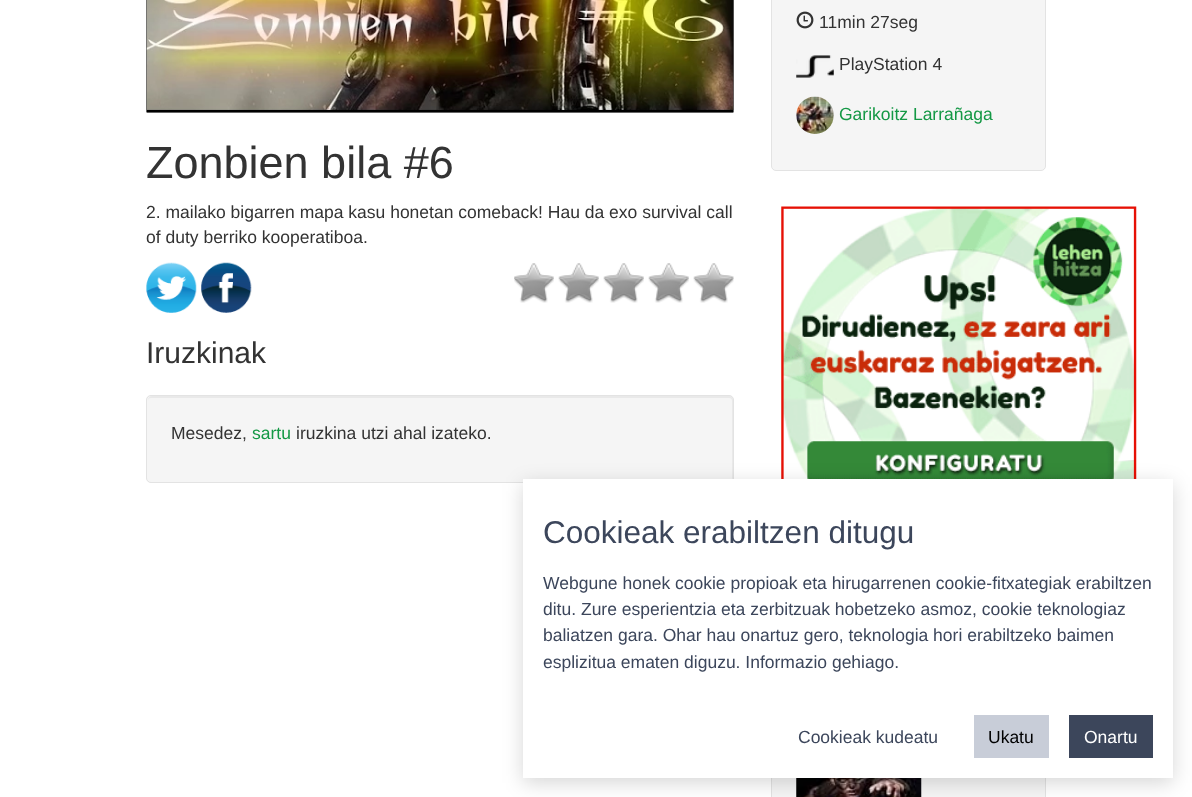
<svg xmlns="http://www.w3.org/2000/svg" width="1192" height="797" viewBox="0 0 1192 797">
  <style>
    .t1 { font: 17.5px Liberation Sans; fill: #333; }
    .t2 { font: 17.5px Liberation Sans; fill: #149845; }
    .t3 { font: 45px Liberation Sans; fill: #333; }
    .t4 { font: 30px Liberation Sans; fill: #333; }
    .t5 { font: 31.5px Liberation Sans; fill: #3c465b; }
    .t6 { font: 17.5px Liberation Sans; fill: #3c465b; }
    .t7 { font: 17.5px Liberation Sans; fill: #000; }
    .t8 { font: 17.5px Liberation Sans; fill: #fff; }
  </style>
  <rect width="100%" height="100%" fill="#fff"/>
  <rect x="771.5" y="-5.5" width="274" height="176" rx="4.5" fill="#f5f5f5" stroke="#e3e3e3"/>
  <image x="796" y="11" width="18" height="18" href="images/1.png"/>
  <text x="819" y="28" class="t1">11min 27seg</text>
  <image x="796" y="55" width="38" height="23" href="images/2.png"/>
  <text x="839" y="70" class="t1">PlayStation 4</text>
  <image x="796" y="96" width="38" height="38" href="images/3.png"/>
  <text x="839" y="120" class="t2">Garikoitz Larrañaga</text>
  <image x="781" y="206" width="356" height="273" href="images/4.png"/>
  <rect x="772" y="778" width="273" height="19" fill="#f5f5f5"/>
  <rect x="771.5" y="580.5" width="274" height="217" fill="none" stroke="#e3e3e3"/>
  <image x="796" y="778" width="126" height="19" href="images/5.png"/>
  <image x="146" y="0" width="588" height="113" href="images/6.png"/>
  <text x="146" y="178" class="t3">Zonbien bila #6</text>
  <text x="146" y="218" class="t1">2. mailako bigarren mapa kasu honetan comeback! Hau da exo survival call</text>
  <text x="146" y="243" class="t1">of duty berriko kooperatiboa.</text>
  <image x="146" y="262" width="51" height="51" href="images/7.png"/>
  <image x="201" y="262" width="51" height="51" href="images/8.png"/>
  <image x="514" y="263" width="40" height="40" href="images/9.png"/>
  <image x="558" y="263" width="41" height="40" href="images/10.png"/>
  <image x="603" y="263" width="41" height="40" href="images/11.png"/>
  <image x="648" y="263" width="41" height="40" href="images/11.png"/>
  <image x="693" y="263" width="41" height="40" href="images/12.png"/>
  <text x="146" y="363" class="t4">Iruzkinak</text>
  <rect x="146" y="395" width="588" height="88" rx="5" fill="#f5f5f5"/>
  <path d="M151 398H729C731 398 732 399 732 401V480C733 479 733 478 733 477V400C733 398 731 396 729 396H152C150 396 148 398 148 400V401C148 399 149 398 151 398Z" fill="#e9e9e9"/>
  <rect x="146.5" y="395.5" width="587" height="87" rx="4.5" fill="none" stroke="#e3e3e3"/>
  <text x="171" y="439" class="t1">Mesedez,</text>
  <text x="252" y="439" class="t2">sartu</text>
  <text x="296" y="439" class="t1">iruzkina utzi ahal izateko.</text>
  <rect x="523" y="484" width="650" height="299" fill="#00000029" filter="blur(10px)"/>
  <rect x="523" y="479" width="650" height="299" fill="#fff"/>
  <text x="543" y="543" class="t5">Cookieak erabiltzen ditugu</text>
  <text x="543" y="589" class="t6">Webgune honek cookie propioak eta hirugarrenen cookie-fitxategiak erabiltzen</text>
  <text x="543" y="615" class="t6">ditu. Zure esperientzia eta zerbitzuak hobetzeko asmoz, cookie teknologiaz</text>
  <text x="543" y="641" class="t6">baliatzen gara. Ohar hau onartuz gero, teknologia hori erabiltzeko baimen</text>
  <text x="543" y="668" class="t6">esplizitua ematen diguzu. Informazio gehiago.</text>
  <text x="798" y="743" class="t6">Cookieak kudeatu</text>
  <rect x="974" y="715" width="75" height="43" fill="#c8cdd8"/>
  <text x="988" y="743" class="t7">Ukatu</text>
  <rect x="1069" y="715" width="84" height="43" fill="#3c465b"/>
  <text x="1084" y="743" class="t8">Onartu</text>
</svg>
